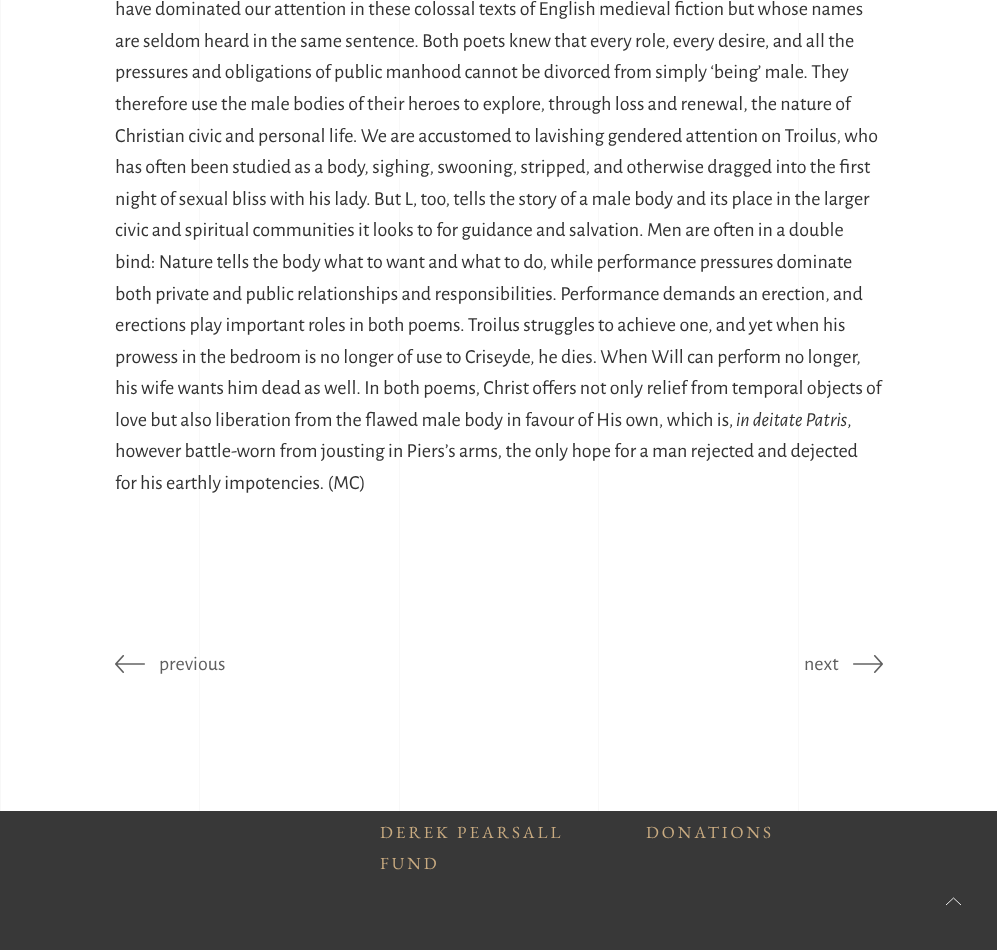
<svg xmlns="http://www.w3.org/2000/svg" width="997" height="950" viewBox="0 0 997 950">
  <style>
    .t1 { font: 20px Alegreya Sans; fill: #333; }
    .t2 { font: italic 20px Alegreya Sans; fill: #333; }
    .t3 { font: 20px Alegreya Sans; fill: #5f5f5f; }
    .t4 { font: 17px EB Garamond; letter-spacing: 3px; fill: #c9ab81; }
  </style>
  <rect width="100%" height="100%" fill="#383838"/>
  <rect x="1" y="0" width="996" height="811" fill="#fff"/>
  <rect x="0" y="0" width="1" height="811" fill="#f8f8f8"/>
  <rect x="199" y="0" width="1" height="811" fill="#f8f8f8"/>
  <rect x="399" y="0" width="1" height="811" fill="#f8f8f8"/>
  <rect x="598" y="0" width="1" height="811" fill="#f8f8f8"/>
  <rect x="798" y="0" width="1" height="811" fill="#f8f8f8"/>
  <text x="115" y="15" class="t1">have dominated our attention in these colossal texts of English medieval fiction but whose names</text>
  <text x="115" y="47" class="t1">are seldom heard in the same sentence. Both poets knew that every role, every desire, and all the</text>
  <text x="115" y="78" class="t1">pressures and obligations of public manhood cannot be divorced from simply ‘being’ male. They</text>
  <text x="115" y="110" class="t1">therefore use the male bodies of their heroes to explore, through loss and renewal, the nature of</text>
  <text x="115" y="142" class="t1">Christian civic and personal life. We are accustomed to lavishing gendered attention on Troilus, who</text>
  <text x="115" y="173" class="t1">has often been studied as a body, sighing, swooning, stripped, and otherwise dragged into the first</text>
  <text x="115" y="205" class="t1">night of sexual bliss with his lady. But L, too, tells the story of a male body and its place in the larger</text>
  <text x="115" y="236" class="t1">civic and spiritual communities it looks to for guidance and salvation. Men are often in a double</text>
  <text x="115" y="268" class="t1">bind: Nature tells the body what to want and what to do, while performance pressures dominate</text>
  <text x="115" y="300" class="t1">both private and public relationships and responsibilities. Performance demands an erection, and</text>
  <text x="115" y="331" class="t1">erections play important roles in both poems. Troilus struggles to achieve one, and yet when his</text>
  <text x="115" y="363" class="t1">prowess in the bedroom is no longer of use to Criseyde, he dies. When Will can perform no longer,</text>
  <text x="115" y="394" class="t1">his wife wants him dead as well. In both poems, Christ offers not only relief from temporal objects of</text>
  <text x="115" y="426" class="t1">love but also liberation from the flawed male body in favour of His own, which is,</text>
  <text x="736" y="426" class="t2">in deitate Patris</text>
  <text x="847" y="426" class="t1">,</text>
  <text x="115" y="457" class="t1">however battle-worn from jousting in Piers’s arms, the only hope for a man rejected and dejected</text>
  <text x="115" y="489" class="t1">for his earthly impotencies. (MC)</text>
  <image x="115" y="655" width="30" height="18" href="images/1.png"/>
  <text x="159" y="670" class="t3">previous</text>
  <text x="804" y="670" class="t3">next</text>
  <image x="853" y="655" width="30" height="18" href="images/2.png"/>
  <text x="380" y="838" class="t4">DEREK PEARSALL</text>
  <text x="380" y="869" class="t4">FUND</text>
  <text x="646" y="838" class="t4">DONATIONS</text>
  <path d="M961 905L953.5 898L946 905" fill="none" stroke="#fff" stroke-width="0.9"/>
</svg>
